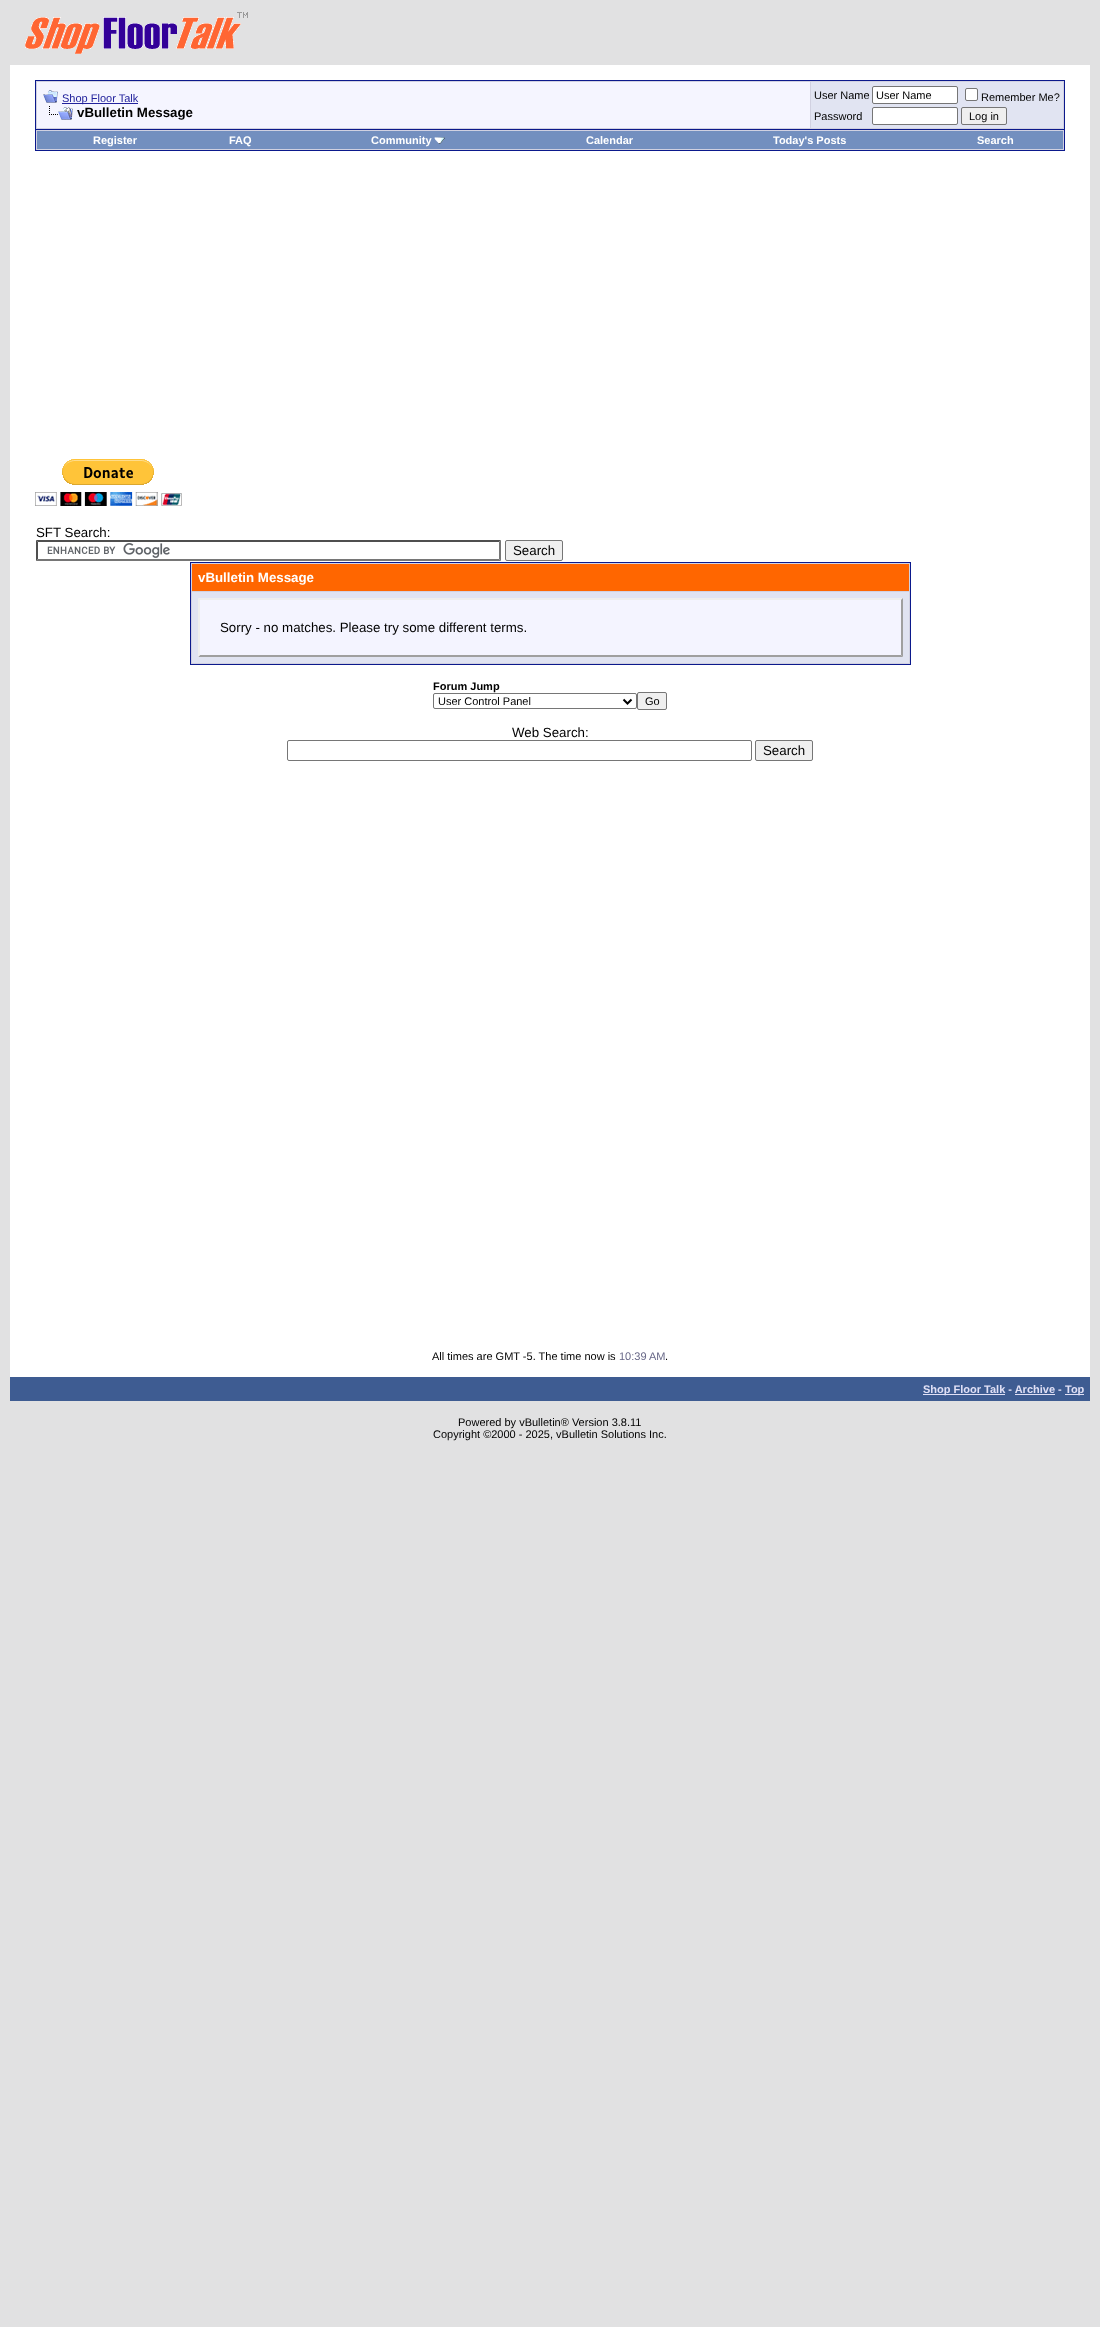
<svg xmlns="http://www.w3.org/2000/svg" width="1100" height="2327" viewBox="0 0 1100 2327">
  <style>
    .t1 { font: 11px Liberation Sans; fill: #22229c; }
    .t2 { font: bold 13.3px Liberation Sans; fill: #000; }
    .t3 { font: 11px Liberation Sans; fill: #000; }
    .t4 { font: bold 11px Liberation Sans; fill: #fff; }
    .t5 { font: 13.3px Liberation Sans; fill: #000; }
    .t6 { font: bold 13.3px Liberation Sans; fill: #fff; }
    .t7 { font: bold 11px Liberation Sans; fill: #000; }
    .t8 { font: 11px Liberation Sans; fill: #666686; }
    .t9 { font: bold 11px Liberation Sans; fill: #e0e0f6; }
  </style>
  <rect width="100%" height="100%" fill="#e1e1e2"/>
  <image x="25" y="12" width="223" height="42" href="images/1.png"/>
  <rect x="10" y="65" width="1080" height="1312" fill="#fff"/>
  <rect x="35.5" y="80.5" width="1029" height="49" fill="#d1d1e1" stroke="#0b198c"/>
  <rect x="37" y="82" width="773" height="46" fill="#f5f5ff"/>
  <image x="43" y="90" width="15" height="13" href="images/2.png"/>
  <rect x="62" y="103" width="76" height="1" fill="#22229c"/>
  <text x="62" y="102" class="t1">Shop Floor Talk</text>
  <image x="49" y="106" width="24" height="14" href="images/3.png"/>
  <text x="77" y="117" class="t2">vBulletin Message</text>
  <rect x="811" y="82" width="252" height="46" fill="#e1e4f2"/>
  <text x="814" y="99" class="t3">User Name</text>
  <rect x="872.5" y="86.5" width="85" height="17" rx="1.5" fill="#fff" stroke="#767676"/>
  <text x="876" y="99" class="t3">User Name</text>
  <rect x="965.5" y="88.5" width="12" height="12" rx="1.5" fill="#fff" stroke="#767676"/>
  <text x="981" y="101" class="t3">Remember Me?</text>
  <text x="814" y="120" class="t3">Password</text>
  <rect x="872.5" y="107.5" width="85" height="17" rx="1.5" fill="#fff" stroke="#767676"/>
  <rect x="961.5" y="107.5" width="45" height="17" rx="1.5" fill="#efefef" stroke="#767676"/>
  <text x="969" y="120" class="t3">Log in</text>
  <rect x="36" y="130" width="1028" height="20" fill="#d1d1e1"/>
  <rect x="1064" y="130" width="1" height="21" fill="#0b198c"/>
  <rect x="35" y="150" width="1030" height="1" fill="#0b198c"/>
  <rect x="35" y="130" width="1" height="21" fill="#0b198c"/>
  <rect x="37" y="131" width="1026" height="18" fill="#738fbf"/>
  <text x="93" y="144" class="t4">Register</text>
  <text x="229" y="144" class="t4">FAQ</text>
  <text x="371" y="144" class="t4">Community</text>
  <image x="434" y="137" width="11" height="7" href="images/4.png"/>
  <text x="586" y="144" class="t4">Calendar</text>
  <text x="773" y="144" class="t4">Today's Posts</text>
  <text x="977" y="144" class="t4">Search</text>
  <image x="35" y="459" width="147" height="47" href="images/5.png"/>
  <text x="36" y="537" class="t5">SFT Search:</text>
  <image x="47" y="543" width="123" height="15" href="images/6.png"/>
  <path d="M36 540H501L499 542H38Z" fill="#4f4f4f"/>
  <path d="M501 540V561L499 559V542Z" fill="#767676"/>
  <path d="M501 561H36L38 559H499Z" fill="#767676"/>
  <path d="M36 561V540L38 542V559Z" fill="#4f4f4f"/>
  <rect x="505.5" y="540.5" width="57" height="20" rx="1.5" fill="#efefef" stroke="#767676"/>
  <text x="513" y="555" class="t5">Search</text>
  <rect x="190.5" y="562.5" width="720" height="102" fill="#d1d1e1" stroke="#0b198c"/>
  <rect x="192" y="564" width="717" height="27" fill="#f60"/>
  <text x="198" y="582" class="t6">vBulletin Message</text>
  <rect x="192" y="592" width="717" height="71" fill="#e0e3f1"/>
  <rect x="198" y="600" width="705" height="57" fill="#f4f4ff"/>
  <path d="M198 598H903L901 600H200Z" fill="#eee"/>
  <path d="M903 598V657L901 655V600Z" fill="#9f9f9f"/>
  <path d="M903 657H198L200 655H901Z" fill="#9f9f9f"/>
  <path d="M198 657V598L200 600V655Z" fill="#eee"/>
  <text x="220" y="632" class="t5">Sorry - no matches. Please try some different terms.</text>
  <text x="433" y="690" class="t7">Forum Jump</text>
  <rect x="433.5" y="693.5" width="203" height="15" rx="1.5" fill="none" stroke="#767676"/>
  <path d="M623.5 699.5L627.5 703.5L631.5 699.5" fill="none" stroke="#000" stroke-width="2"/>
  <text x="438" y="705" class="t3">User Control Panel</text>
  <rect x="637.5" y="692.5" width="29" height="17" rx="1.5" fill="#efefef" stroke="#767676"/>
  <text x="645" y="705" class="t3">Go</text>
  <text x="512" y="737" class="t5">Web Search:</text>
  <rect x="287.5" y="740.5" width="464" height="20" rx="1.5" fill="none" stroke="#767676"/>
  <rect x="755.5" y="740.5" width="57" height="20" rx="1.5" fill="#efefef" stroke="#767676"/>
  <text x="763" y="755" class="t5">Search</text>
  <text x="432" y="1360" class="t3">All times are GMT -5. The time now is</text>
  <text x="619" y="1360" class="t8">10:39 AM</text>
  <text x="665" y="1360" class="t3">.</text>
  <rect x="10" y="1377" width="1080" height="24" fill="#3e5c92"/>
  <rect x="923" y="1394" width="82" height="1" fill="#e0e0f6"/>
  <text x="923" y="1393" class="t9">Shop Floor Talk - Archive -</text>
  <rect x="1015" y="1394" width="40" height="1" fill="#e0e0f6"/>
  <rect x="1065" y="1394" width="19" height="1" fill="#e0e0f6"/>
  <text x="1065" y="1393" class="t9">Top</text>
  <text x="458" y="1426" class="t3">Powered by vBulletin® Version 3.8.11</text>
  <text x="433" y="1438" class="t3">Copyright ©2000 - 2025, vBulletin Solutions Inc.</text>
</svg>
